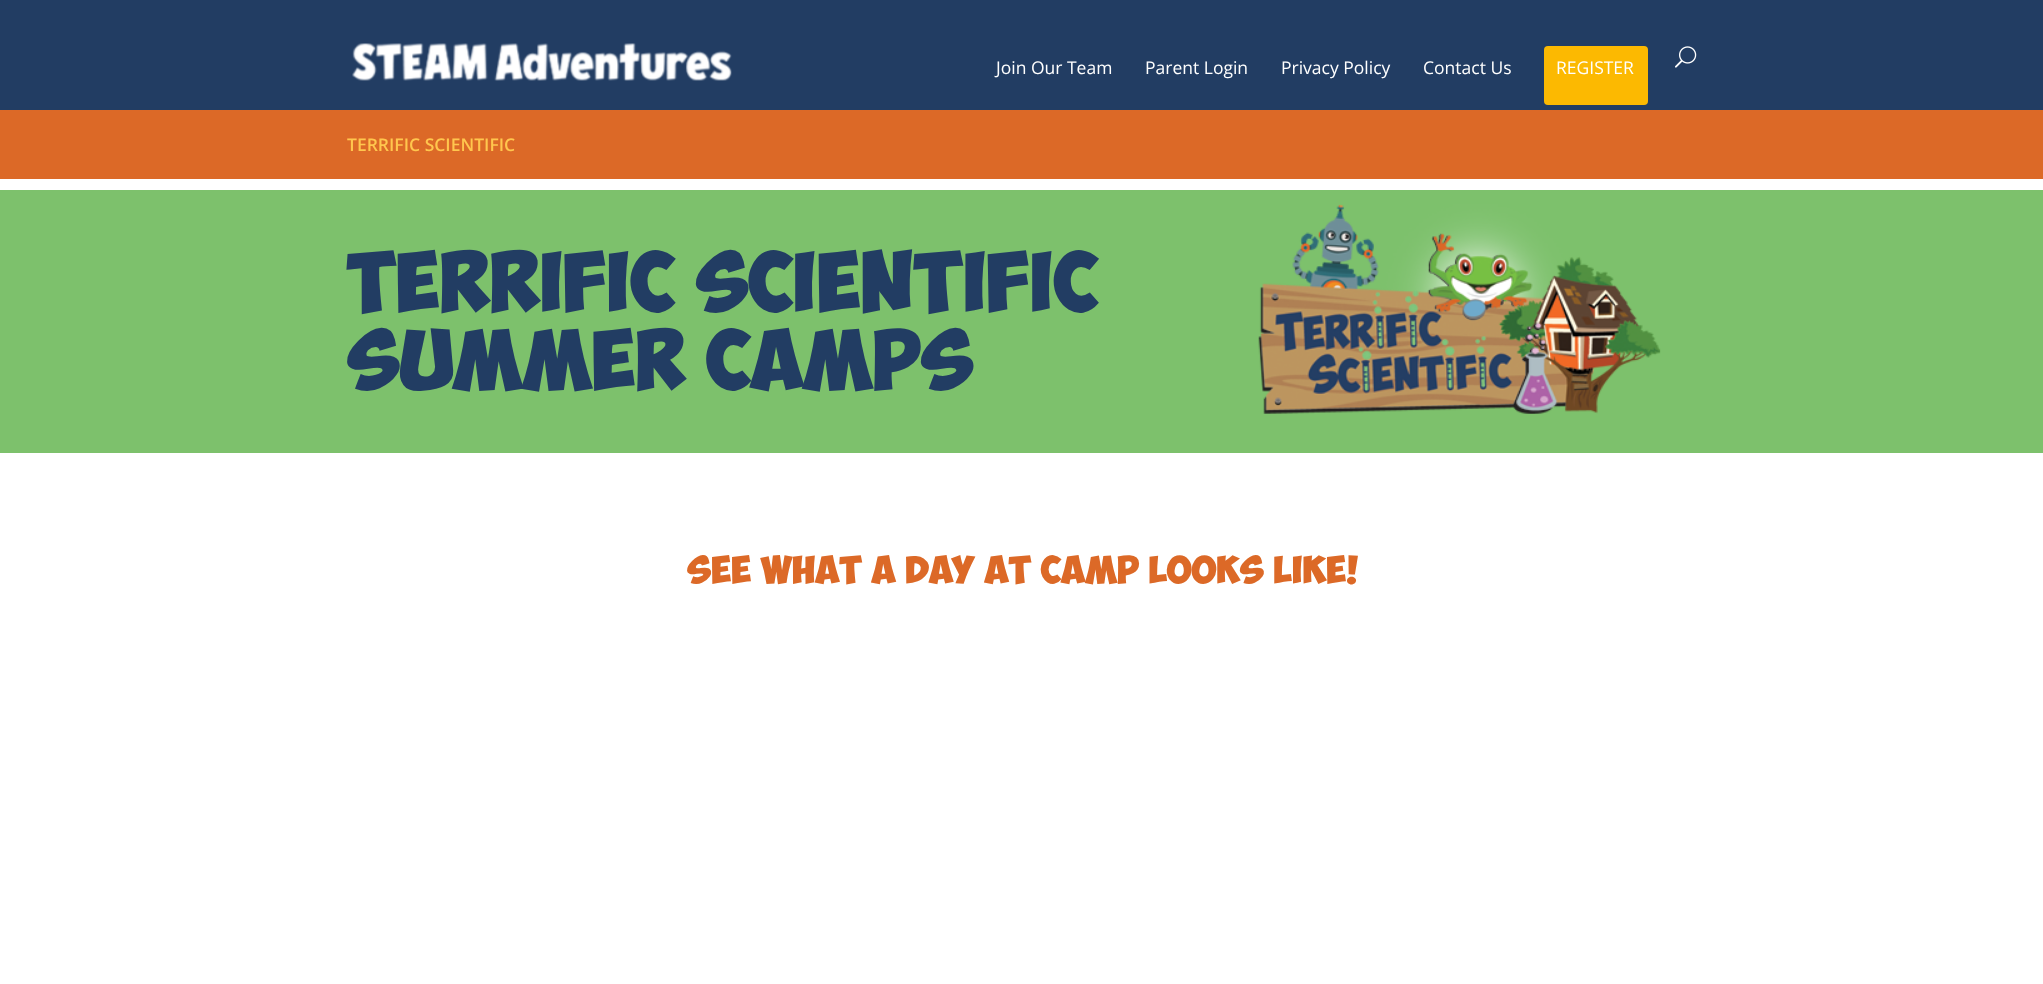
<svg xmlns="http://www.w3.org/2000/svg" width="2043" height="984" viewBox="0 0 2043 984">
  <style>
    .t1 { font: 17.5px Open Sans; fill: #fff; }
    .t2 { font: 600 17.5px Open Sans; fill: #ffc64e; }
    .t3 { font: bold 60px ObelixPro; fill: #223d63; }
    .t4 { font: bold 27.5px ObelixPro; fill: #dc6927; }
  </style>
  <rect width="100%" height="100%" fill="#fff"/>
  <rect x="0" y="0" width="2043" height="110" fill="#223d63"/>
  <image x="352" y="43" width="380" height="38" href="images/1.png"/>
  <text x="996" y="74" class="t1">Join Our Team</text>
  <text x="1145" y="74" class="t1">Parent Login</text>
  <text x="1281" y="74" class="t1">Privacy Policy</text>
  <text x="1423" y="74" class="t1">Contact Us</text>
  <rect x="1544" y="46" width="104" height="59" rx="4" fill="#fcb901"/>
  <text x="1556" y="74" class="t1">REGISTER</text>
  <image x="1675" y="46" width="22" height="22" href="images/2.png"/>
  <rect x="0" y="110" width="2043" height="69" fill="#dc6927"/>
  <text x="347" y="151" class="t2">TERRIFIC SCIENTIFIC</text>
  <rect x="0" y="190" width="2043" height="263" fill="#7dc16c"/>
  <text x="347" y="313" class="t3">TERRIFIC SCIENTIFIC</text>
  <text x="347" y="391" class="t3">SUMMER CAMPS</text>
  <image x="1258" y="204" width="403" height="210" href="images/3.png"/>
  <text x="687" y="584" class="t4">See What a Day at Camp Looks Like!</text>
</svg>
